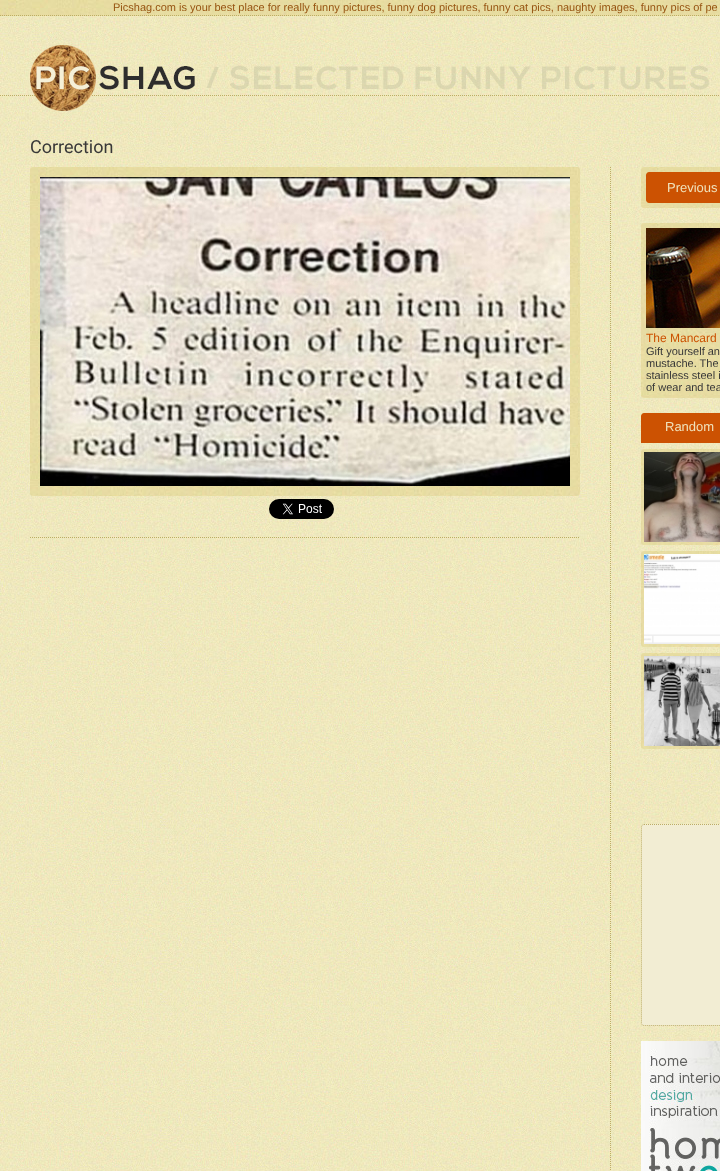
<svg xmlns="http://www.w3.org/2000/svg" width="720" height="1171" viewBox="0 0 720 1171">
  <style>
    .t1 { font: 11px Liberation Sans; fill: #975512; }
    .t2 { font: 18px Roboto; fill: #383838; }
    .t3 { font: 13px Liberation Sans; fill: #f0e2bb; }
    .t4 { font: 12px Liberation Sans; fill: #cc5202; }
    .t5 { font: 11px Liberation Sans; fill: #383838; }
  </style>
  <rect width="100%" height="100%" fill="#fff"/>
  <image x="0" y="16" width="720" height="1155" href="images/1.png"/>
  <path d="M0 95.5H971" fill="none" stroke="#bdad65" stroke-dasharray="1 1"/>
  <image x="0" y="0" width="720" height="16" href="images/2.png"/>
  <path d="M0 15.5H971" fill="none" stroke="#bdad65" stroke-dasharray="1 1"/>
  <text x="113" y="11" class="t1">Picshag.com is your best place for really funny pictures, funny dog pictures, funny cat pics, naughty images, funny pics of pe</text>
  <image x="30" y="45" width="165" height="66" href="images/3.png"/>
  <image x="206" y="65" width="503" height="25" href="images/4.png"/>
  <text x="30" y="153" class="t2">Correction</text>
  <image x="30" y="167" width="550" height="329" href="images/5.png"/>
  <image x="269" y="499" width="65" height="20" href="images/6.png"/>
  <path d="M30 537.5H580" fill="none" stroke="#bdad65" stroke-dasharray="1 1"/>
  <path d="M610.5 167V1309" fill="none" stroke="#bdad65" stroke-dasharray="1 1"/>
  <image x="641" y="167" width="79" height="41" href="images/7.png"/>
  <path d="M649 172H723V203H649C647.5 203 646 201.5 646 200V175C646 173.5 647.5 172 649 172Z" fill="#cc5202"/>
  <text x="667" y="192" class="t3">Previous</text>
  <image x="641" y="223" width="79" height="175" href="images/8.png"/>
  <image x="646" y="228" width="74" height="100" href="images/9.png"/>
  <text x="646" y="342" class="t4">The Mancard</text>
  <text x="646" y="355" class="t5">Gift yourself an</text>
  <text x="646" y="367" class="t5">mustache. The</text>
  <text x="646" y="379" class="t5">stainless steel i</text>
  <text x="646" y="391" class="t5">of wear and tea</text>
  <rect x="641" y="440" width="79" height="3" fill="#cc5202"/>
  <path d="M644 413H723V440H641V416C641 414.5 642.5 413 644 413Z" fill="#cc5202"/>
  <text x="665" y="431" class="t3">Random</text>
  <image x="641" y="449" width="79" height="96" href="images/10.png"/>
  <image x="641" y="551" width="79" height="96" href="images/11.png"/>
  <image x="641" y="653" width="79" height="96" href="images/12.png"/>
  <rect x="641" y="824" width="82" height="202" rx="3" fill="#f2edd3"/>
  <path d="M644 824.5H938C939.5 824.5 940.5 825.5 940.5 827V1023C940.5 1024.5 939.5 1025.5 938 1025.5H644C642.5 1025.5 641.5 1024.5 641.5 1023V827C641.5 825.5 642.5 824.5 644 824.5Z" fill="none" stroke="#bdad65" stroke-dasharray="1 1"/>
  <image x="641" y="1041" width="79" height="130" href="images/13.png"/>
</svg>
